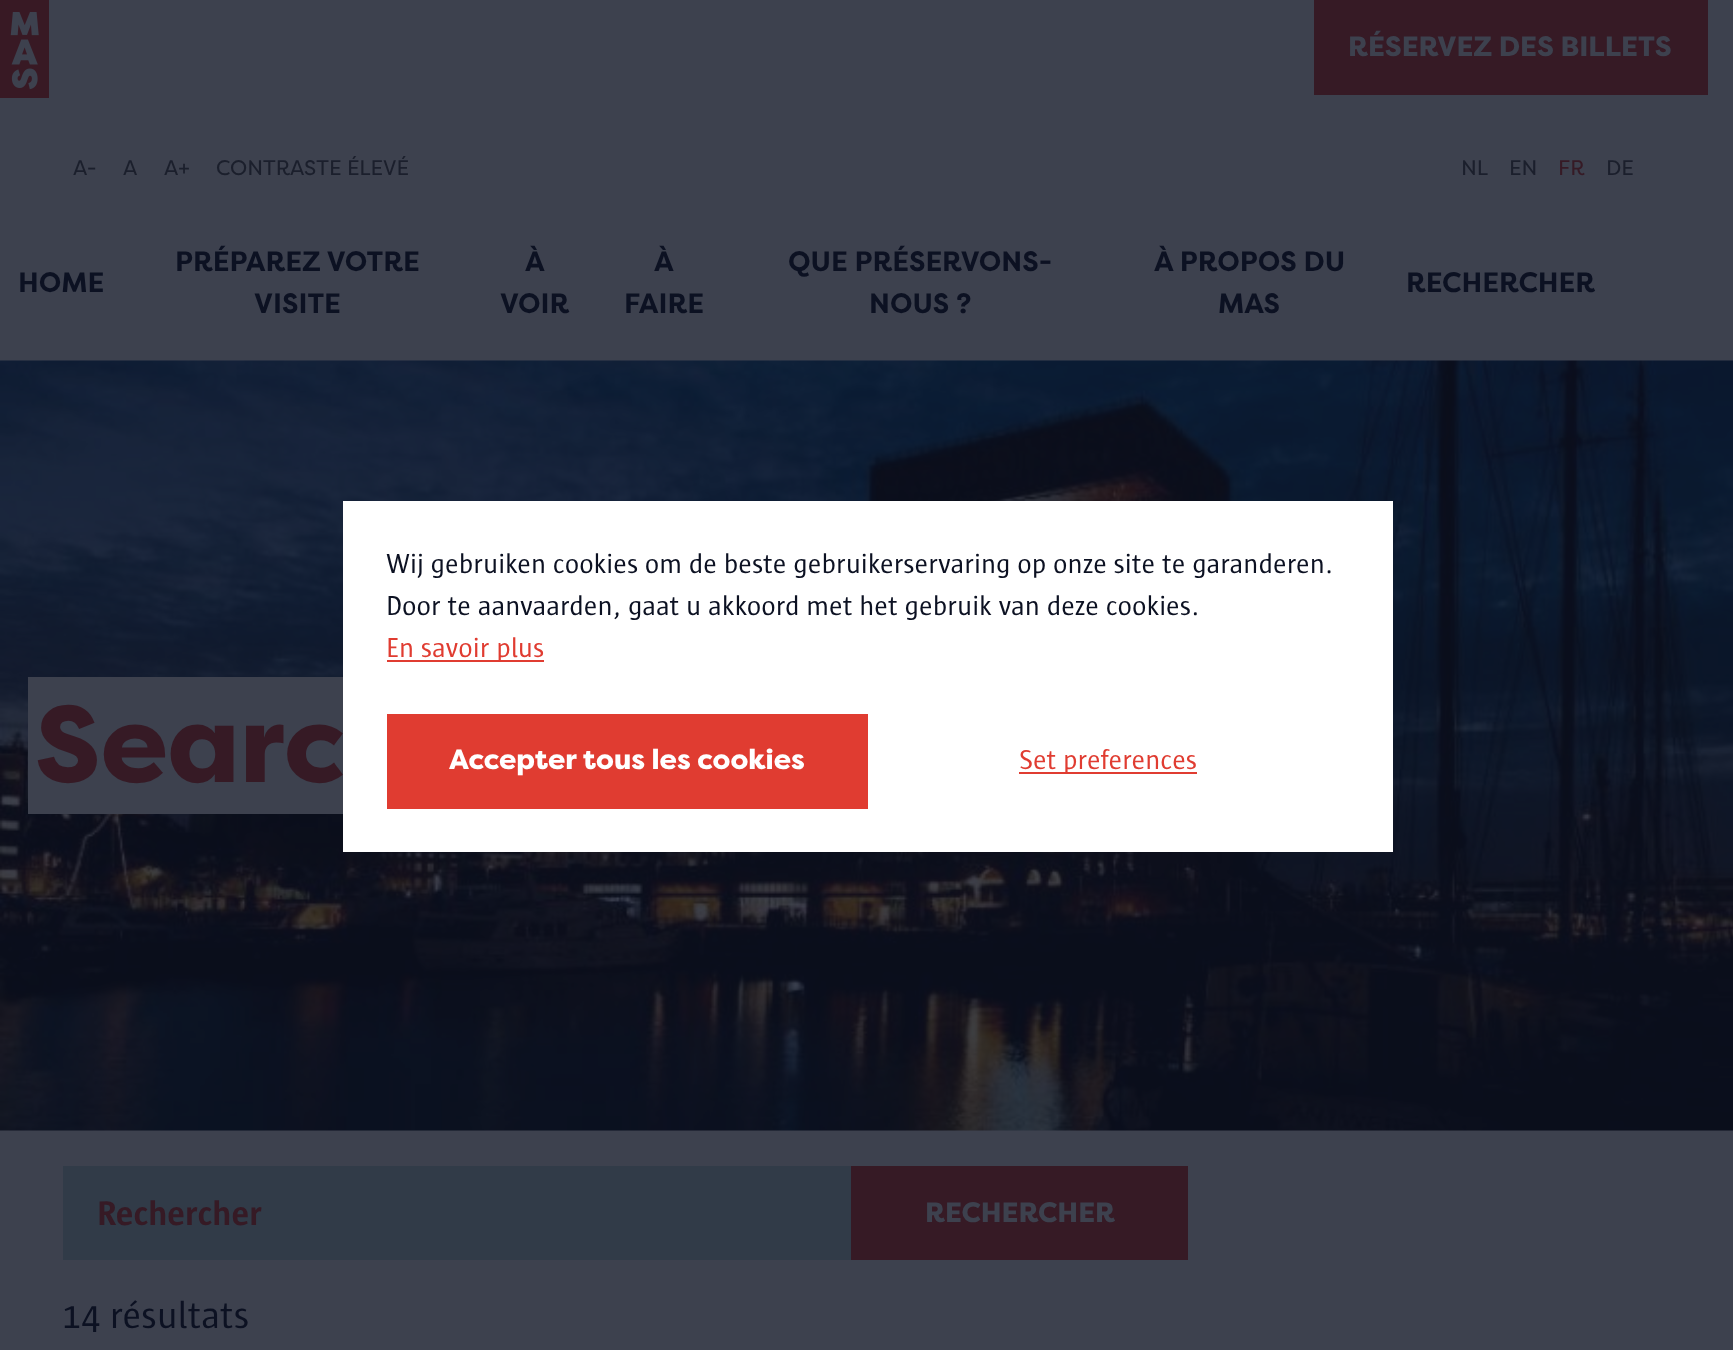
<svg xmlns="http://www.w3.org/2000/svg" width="1733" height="1350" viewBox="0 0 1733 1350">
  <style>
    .t1 { font: 900 28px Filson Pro; fill: #3d414e; }
    .t2 { font: 21px Filson Pro; fill: #1b1f2c; }
    .t3 { font: 21px Filson Pro; fill: #361a25; }
    .t4 { font: bold 28px Filson Pro; fill: #0c1122; }
    .t5 { font: 900 108.5px Filson Pro; fill: #361a25; }
    .t6 { font: bold 35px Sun; fill: #361a25; }
    .t7 { font: 38.5px Sun; fill: #0c1122; }
    .t8 { font: 28px Sun; fill: #0c1122; }
    .t9 { font: 28px Sun; fill: #e03c31; }
    .t10 { font: 900 28px Filson Pro; fill: #fff; }
  </style>
  <rect width="100%" height="100%" fill="#3d414e"/>
  <image x="0" y="0" width="49" height="98" href="images/1.png"/>
  <rect x="1314" y="0" width="394" height="95" fill="#361a25"/>
  <text x="1348" y="56" class="t1">RÉSERVEZ DES BILLETS</text>
  <text x="73" y="175" class="t2">A-</text>
  <text x="123" y="175" class="t2">A</text>
  <text x="164" y="175" class="t2">A+</text>
  <text x="216" y="175" class="t2">CONTRASTE ÉLEVÉ</text>
  <text x="1461" y="175" class="t2">NL</text>
  <text x="1509" y="175" class="t2">EN</text>
  <text x="1558" y="175" class="t3">FR</text>
  <text x="1606" y="175" class="t2">DE</text>
  <text x="18" y="292" class="t4">HOME</text>
  <text x="175" y="271" class="t4">PRÉPAREZ VOTRE</text>
  <text x="254" y="313" class="t4">VISITE</text>
  <text x="525" y="271" class="t4">À</text>
  <text x="500" y="313" class="t4">VOIR</text>
  <text x="654" y="271" class="t4">À</text>
  <text x="624" y="313" class="t4">FAIRE</text>
  <text x="788" y="271" class="t4">QUE PRÉSERVONS-</text>
  <text x="869" y="313" class="t4">NOUS ?</text>
  <text x="1154" y="271" class="t4">À PROPOS DU</text>
  <text x="1218" y="313" class="t4">MAS</text>
  <text x="1406" y="292" class="t4">RECHERCHER</text>
  <image x="0" y="360" width="1733" height="771" href="images/2.png"/>
  <rect x="31.5" y="680.5" width="383" height="130" fill="none" stroke="#3d414e" stroke-width="7"/>
  <rect x="35" y="684" width="308" height="123" fill="#3d414e"/>
  <text x="35" y="782" class="t5">Searc</text>
  <rect x="63" y="1166" width="788" height="94" fill="#313b48"/>
  <text x="97" y="1225" class="t6">Rechercher</text>
  <rect x="851" y="1166" width="337" height="94" fill="#361a25"/>
  <text x="925" y="1222" class="t1">RECHERCHER</text>
  <text x="62" y="1328" class="t7">14 résultats</text>
  <rect x="343" y="501" width="1050" height="351" fill="#fff"/>
  <text x="386" y="573" class="t8">Wij gebruiken cookies om de beste gebruikerservaring op onze site te garanderen.</text>
  <text x="386" y="615" class="t8">Door te aanvaarden, gaat u akkoord met het gebruik van deze cookies.</text>
  <rect x="387" y="660" width="157" height="2" fill="#e03c31"/>
  <text x="386" y="657" class="t9">En savoir plus</text>
  <rect x="387" y="714" width="481" height="95" fill="#e03c31"/>
  <text x="449" y="769" class="t10">Accepter tous les cookies</text>
  <rect x="1019" y="772" width="178" height="2" fill="#e03c31"/>
  <text x="1019" y="769" class="t9">Set preferences</text>
</svg>
